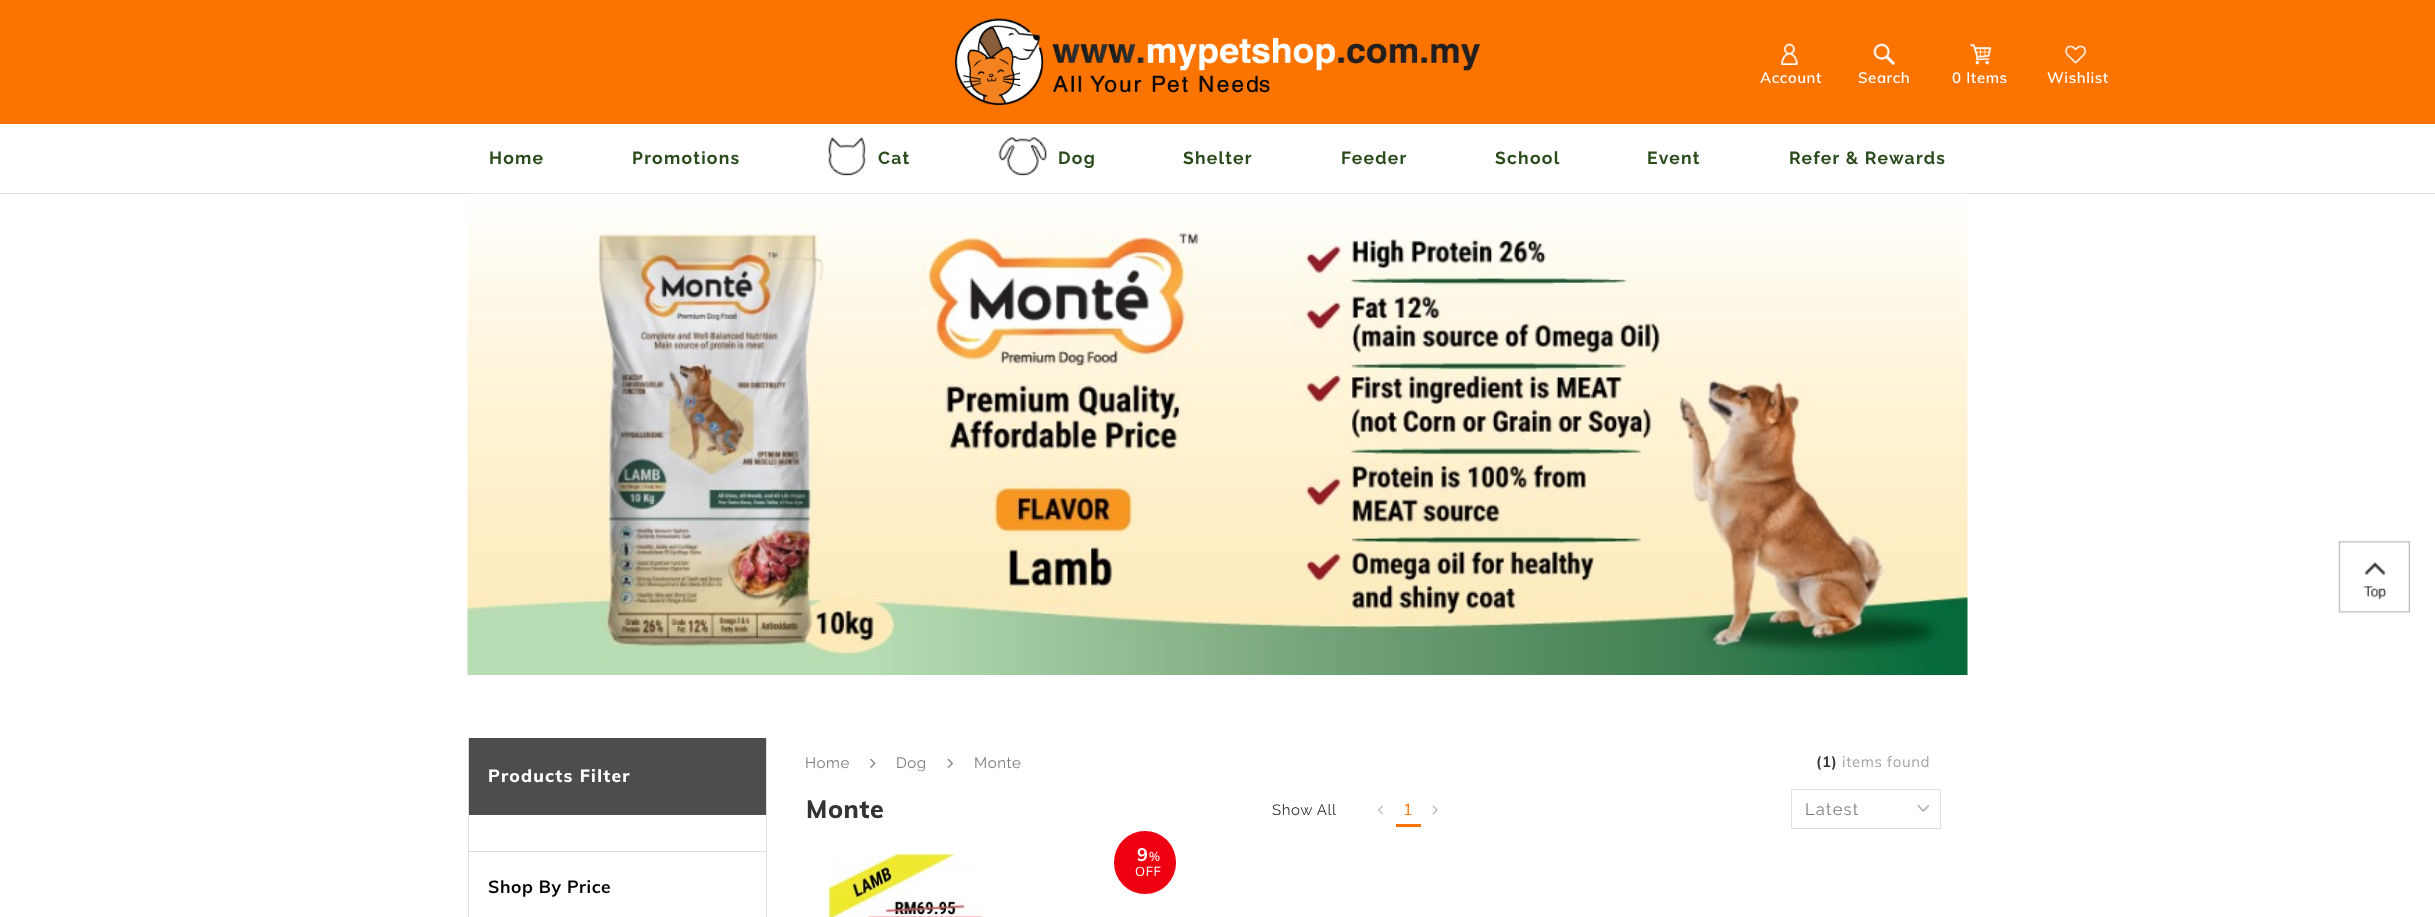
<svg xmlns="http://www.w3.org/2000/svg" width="2435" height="917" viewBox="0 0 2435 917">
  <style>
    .t1 { font: 600 15px Muli; letter-spacing: 0.6px; fill: #fff; }
    .t2 { font: bold 17.5px Raleway; letter-spacing: 1.25px; fill: #2b4b1d; }
    .t3 { font: 800 17.5px Muli; letter-spacing: 1.25px; fill: #fff; }
    .t4 { font: bold 17.5px Muli; letter-spacing: 0.6px; fill: #000; }
    .t5 { font: 15px Raleway; letter-spacing: 0.6px; fill: #7c7c7c; }
    .t6 { font: bold 15px Muli; letter-spacing: 0.6px; fill: #333; }
    .t7 { font: 15px Muli; letter-spacing: 0.6px; fill: #a4a4a4; }
    .t8 { font: 800 25px Muli; letter-spacing: 0.6px; fill: #333; }
    .t9 { font: 15px Raleway; letter-spacing: 0.6px; fill: #333; }
    .t10 { font: 16px Muli; letter-spacing: 0.6px; fill: #fb7400; }
    .t11 { font: 16.5px Raleway; letter-spacing: 1.25px; fill: #7c7c7c; }
    .t12 { font: bold 18px Muli; letter-spacing: 0.6px; fill: #fff; }
    .t13 { font: 13px Muli; letter-spacing: 0.6px; fill: #fff; }
  </style>
  <rect width="100%" height="100%" fill="#fff"/>
  <rect x="0" y="0" width="2435" height="124" fill="#fb7400"/>
  <image x="955" y="18" width="525" height="87" href="images/1.png"/>
  <image x="1780" y="43" width="19" height="22" href="images/2.png"/>
  <text x="1760" y="83" class="t1">Account</text>
  <image x="1873" y="43" width="22" height="22" href="images/3.png"/>
  <text x="1858" y="83" class="t1">Search</text>
  <image x="1970" y="43" width="22" height="22" href="images/4.png"/>
  <text x="1952" y="83" class="t1">0 Items</text>
  <image x="2065" y="45" width="22" height="19" href="images/5.png"/>
  <text x="2047" y="83" class="t1">Wishlist</text>
  <text x="489" y="164" class="t2">Home</text>
  <text x="632" y="164" class="t2">Promotions</text>
  <image x="828" y="137" width="38" height="39" href="images/6.png"/>
  <text x="878" y="164" class="t2">Cat</text>
  <image x="998" y="137" width="49" height="39" href="images/7.png"/>
  <text x="1058" y="164" class="t2">Dog</text>
  <text x="1183" y="164" class="t2">Shelter</text>
  <text x="1341" y="164" class="t2">Feeder</text>
  <text x="1495" y="164" class="t2">School</text>
  <text x="1647" y="164" class="t2">Event</text>
  <text x="1789" y="164" class="t2">Refer &amp; Rewards</text>
  <image x="2338" y="541" width="72" height="72" href="images/8.png"/>
  <rect x="0" y="193" width="2435" height="1" fill="#dedede"/>
  <image x="467" y="193" width="1501" height="482" href="images/9.png"/>
  <rect x="766" y="738" width="1" height="179" fill="#dedede"/>
  <rect x="468" y="738" width="1" height="179" fill="#dedede"/>
  <rect x="469" y="738" width="297" height="77" fill="#4d4d4d"/>
  <text x="488" y="782" class="t3">Products Filter</text>
  <rect x="469" y="851" width="297" height="1" fill="#dedede"/>
  <text x="488" y="893" class="t4">Shop By Price</text>
  <text x="805" y="768" class="t5">Home</text>
  <image x="870" y="758" width="6" height="10" href="images/10.png"/>
  <text x="896" y="768" class="t5">Dog</text>
  <image x="947" y="758" width="6" height="10" href="images/11.png"/>
  <text x="974" y="768" class="t5">Monte</text>
  <text x="1816" y="767" class="t6">(1)</text>
  <text x="1842" y="767" class="t7">items found</text>
  <text x="806" y="818" class="t8">Monte</text>
  <text x="1272" y="815" class="t9">Show All</text>
  <image x="1378" y="805" width="5" height="10" href="images/12.png"/>
  <text x="1403" y="815" class="t10">1</text>
  <rect x="1396" y="824" width="25" height="3" fill="#fb7400"/>
  <image x="1432" y="805" width="6" height="10" href="images/13.png"/>
  <image x="1917" y="804" width="13" height="8" href="images/14.png"/>
  <rect x="1791.5" y="789.5" width="149" height="39" fill="none" stroke="#dfdfdf"/>
  <text x="1805" y="815" class="t11">Latest</text>
  <image x="828" y="853" width="158" height="64" href="images/15.png"/>
  <rect x="1114" y="831" width="62" height="63" rx="31" fill="#ef0011"/>
  <text x="1137" y="861" class="t12">9</text>
  <text x="1149" y="861" class="t13">%</text>
  <text x="1135" y="876" class="t13">OFF</text>
</svg>
